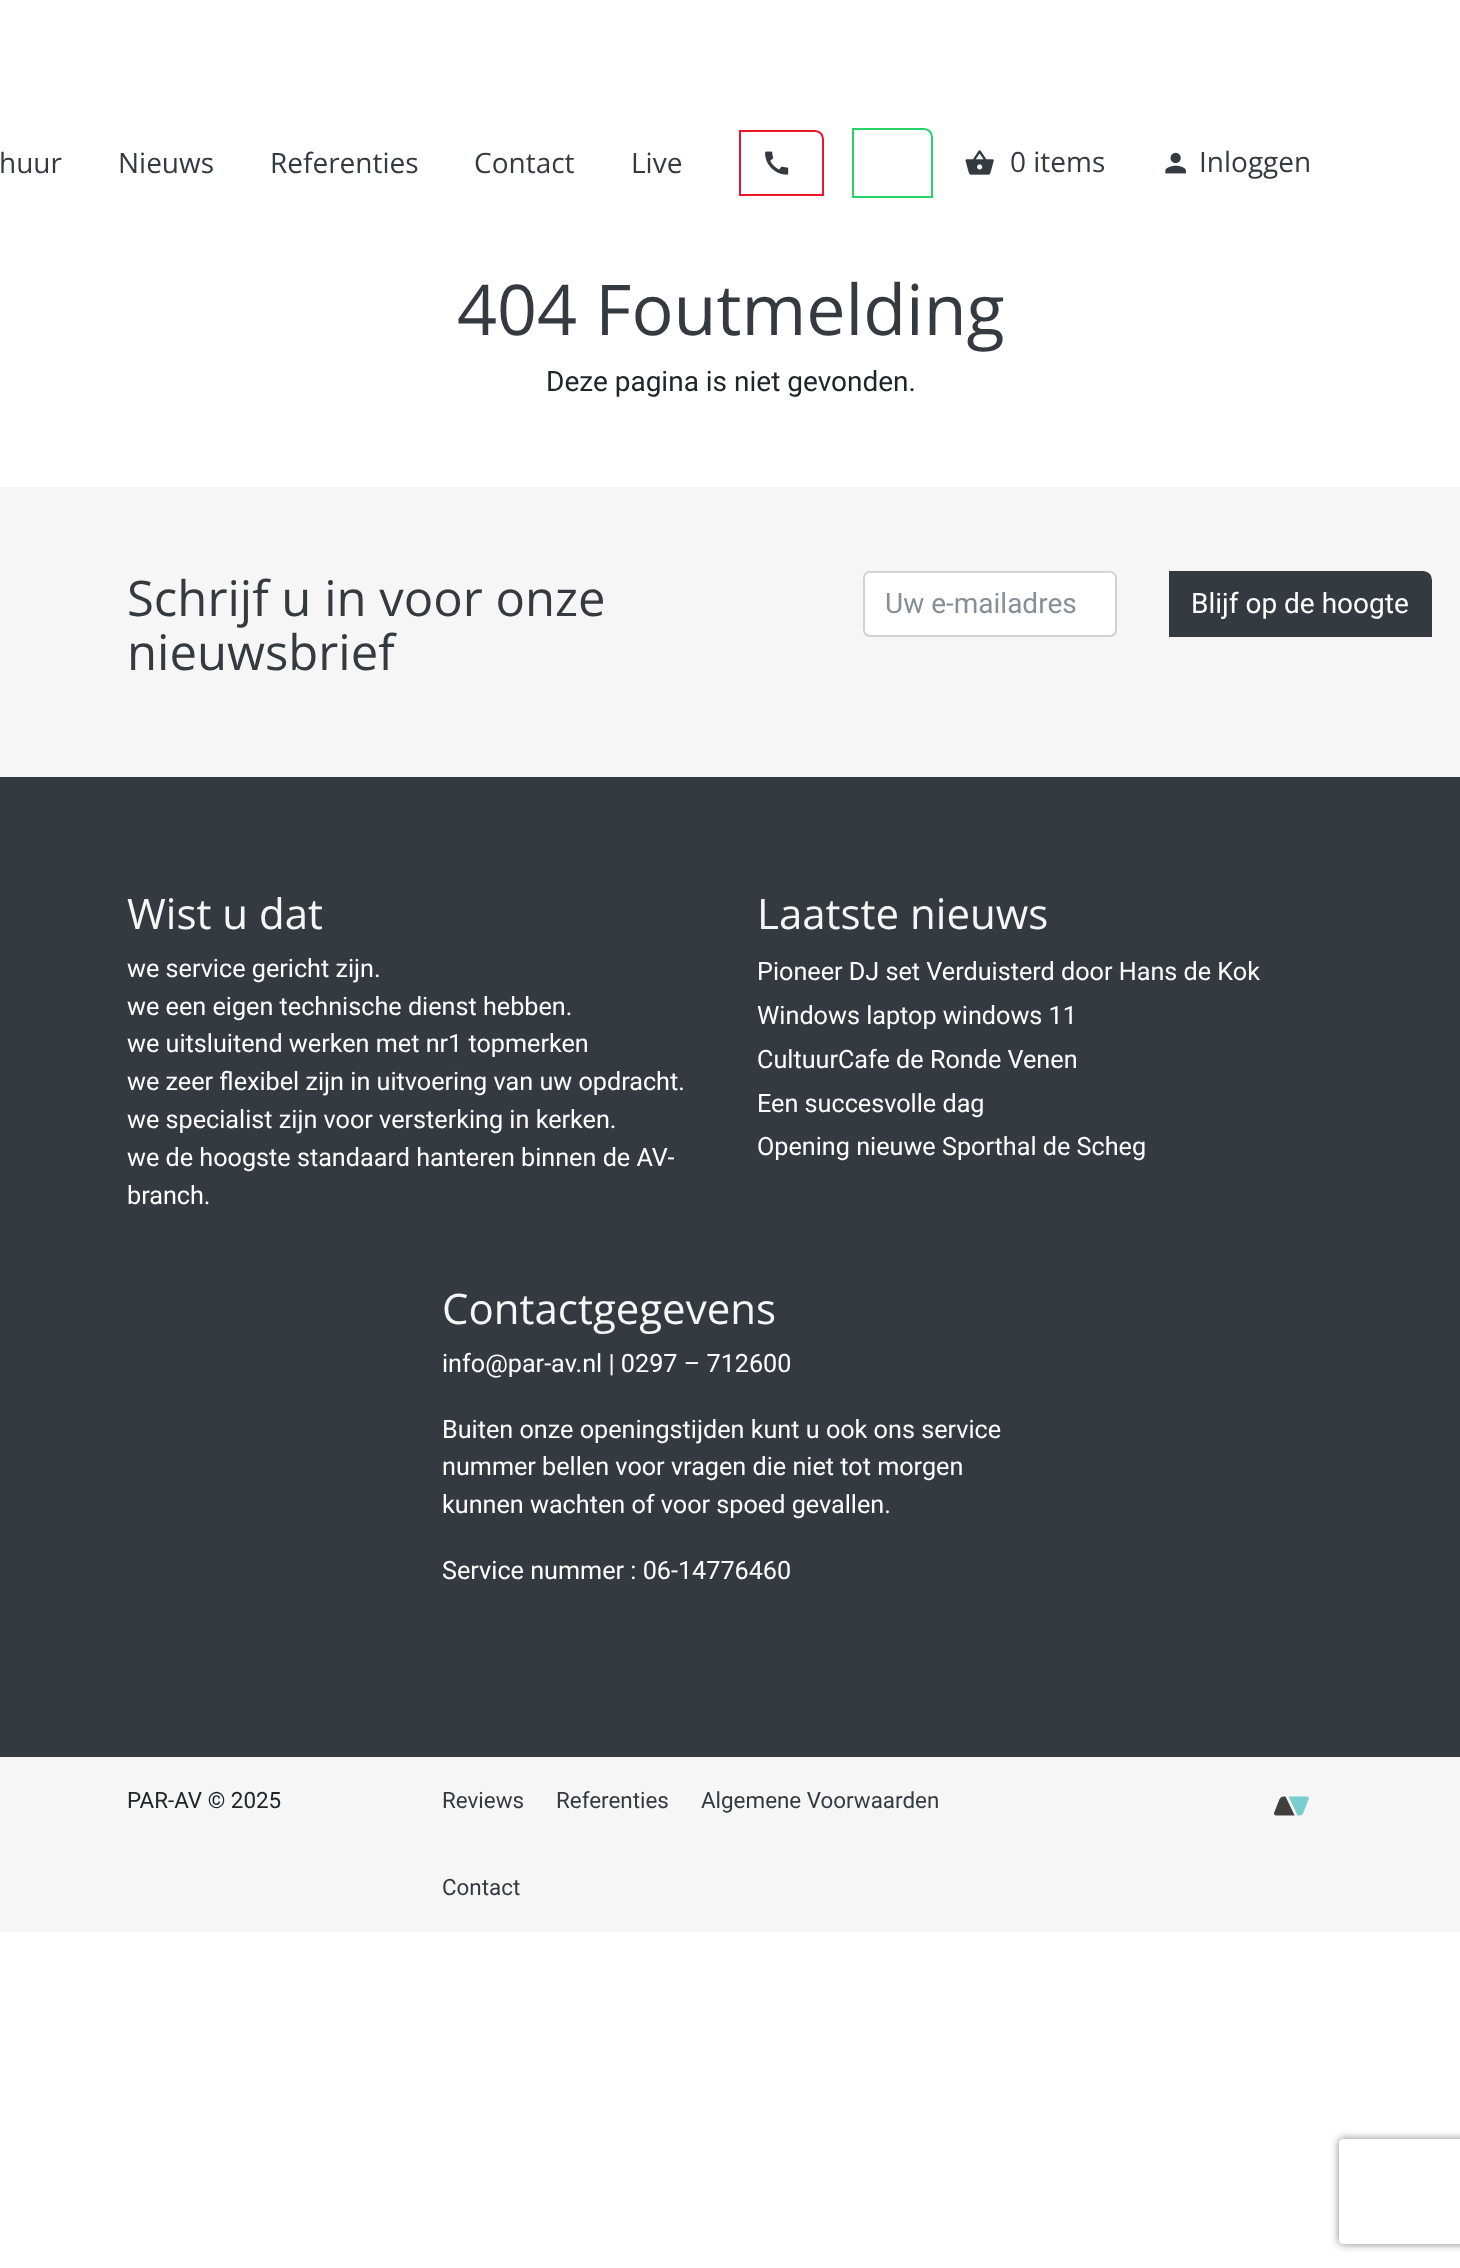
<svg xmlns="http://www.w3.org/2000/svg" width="1460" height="2268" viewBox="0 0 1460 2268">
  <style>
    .t1 { font: 28px Open Sans; fill: #343a40; }
    .t2 { font: 70px Open Sans; fill: #343a40; }
    .t3 { font: 28px Roboto; fill: #212529; }
    .t4 { font: 49px Open Sans; fill: #343a40; }
    .t5 { font: 28px Roboto; fill: #868e96; }
    .t6 { font: 28px Roboto; fill: #fff; }
    .t7 { font: 42px Open Sans; fill: #f6f6f6; }
    .t8 { font: 25.2px Roboto; fill: #fff; }
    .t9 { font: 22.4px Roboto; fill: #212529; }
    .t10 { font: 22.4px Roboto; fill: #343a40; }
  </style>
  <defs>
    <clipPath id="clip1"><path d="M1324 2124H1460V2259H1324ZM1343 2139H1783C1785 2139 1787 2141 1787 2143V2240C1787 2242 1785 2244 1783 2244H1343C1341 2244 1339 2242 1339 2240V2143C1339 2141 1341 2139 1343 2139Z" clip-rule="evenodd"/></clipPath>
  </defs>
  <rect width="100%" height="100%" fill="#fff"/>
  <text x="-1" y="173" class="t1">huur</text>
  <text x="118" y="173" class="t1">Nieuws</text>
  <text x="270" y="173" class="t1">Referenties</text>
  <text x="474" y="173" class="t1">Contact</text>
  <text x="631" y="173" class="t1">Live</text>
  <path d="M740 131H815C819.5 131 823 134.5 823 139V195H740Z" fill="none" stroke="#eb162a" stroke-width="2"/>
  <image x="765" y="151" width="24" height="24" href="images/1.png"/>
  <path d="M853 129H924C928.5 129 932 132.5 932 137V197H853Z" fill="none" stroke="#25d366" stroke-width="2"/>
  <image x="965" y="150" width="29" height="25" href="images/2.png"/>
  <text x="1010" y="172" class="t1">0 items</text>
  <image x="1165" y="152" width="21" height="22" href="images/3.png"/>
  <text x="1199" y="172" class="t1">Inloggen</text>
  <text x="457" y="335" class="t2">404 Foutmelding</text>
  <text x="546" y="391" class="t3">Deze pagina is niet gevonden.</text>
  <rect x="0" y="487" width="1460" height="290" fill="#f6f6f6"/>
  <text x="127" y="616" class="t4">Schrijf u in voor onze</text>
  <text x="127" y="670" class="t4">nieuwsbrief</text>
  <rect x="865" y="572" width="250" height="63" rx="5" fill="#fff"/>
  <rect x="864" y="572" width="252" height="64" rx="6" fill="none" stroke="#00000026" stroke-width="2"/>
  <text x="885" y="613" class="t5">Uw e-mailadres</text>
  <path d="M1170 572H1423C1427.5 572 1431 575.5 1431 580V636H1170Z" fill="#343a40" stroke="#343a40" stroke-width="2"/>
  <text x="1191" y="613" class="t6">Blijf op de hoogte</text>
  <rect x="0" y="777" width="1460" height="980" fill="#343a40"/>
  <text x="127" y="929" class="t7">Wist u dat</text>
  <text x="127" y="977" class="t8">we service gericht zijn.</text>
  <text x="127" y="1015" class="t8">we een eigen technische dienst hebben.</text>
  <text x="127" y="1052" class="t8">we uitsluitend werken met nr1 topmerken</text>
  <text x="127" y="1090" class="t8">we zeer flexibel zijn in uitvoering van uw opdracht.</text>
  <text x="127" y="1128" class="t8">we specialist zijn voor versterking in kerken.</text>
  <text x="127" y="1166" class="t8">we de hoogste standaard hanteren binnen de AV-</text>
  <text x="127" y="1204" class="t8">branch.</text>
  <text x="757" y="929" class="t7">Laatste nieuws</text>
  <text x="757" y="980" class="t8">Pioneer DJ set Verduisterd door Hans de Kok</text>
  <text x="757" y="1024" class="t8">Windows laptop windows 11</text>
  <text x="757" y="1068" class="t8">CultuurCafe de Ronde Venen</text>
  <text x="757" y="1112" class="t8">Een succesvolle dag</text>
  <text x="757" y="1155" class="t8">Opening nieuwe Sporthal de Scheg</text>
  <text x="442" y="1324" class="t7">Contactgegevens</text>
  <text x="442" y="1372" class="t8">info@par-av.nl | 0297 – 712600</text>
  <text x="442" y="1438" class="t8">Buiten onze openingstijden kunt u ook ons service</text>
  <text x="442" y="1475" class="t8">nummer bellen voor vragen die niet tot morgen</text>
  <text x="442" y="1513" class="t8">kunnen wachten of voor spoed gevallen.</text>
  <text x="442" y="1579" class="t8">Service nummer : 06-14776460</text>
  <rect x="0" y="1757" width="1460" height="175" fill="#f6f6f6"/>
  <text x="127" y="1808" class="t9">PAR-AV © 2025</text>
  <text x="442" y="1808" class="t10">Reviews</text>
  <text x="556" y="1808" class="t10">Referenties</text>
  <text x="701" y="1808" class="t10">Algemene Voorwaarden</text>
  <text x="442" y="1895" class="t10">Contact</text>
  <image x="1274" y="1796" width="35" height="20" href="images/4.png"/>
  <g clip-path="url(#clip1)">
    <rect x="1339" y="2139" width="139" height="105" rx="4" fill="#808080" filter="blur(4.5px)"/>
  </g>
</svg>
